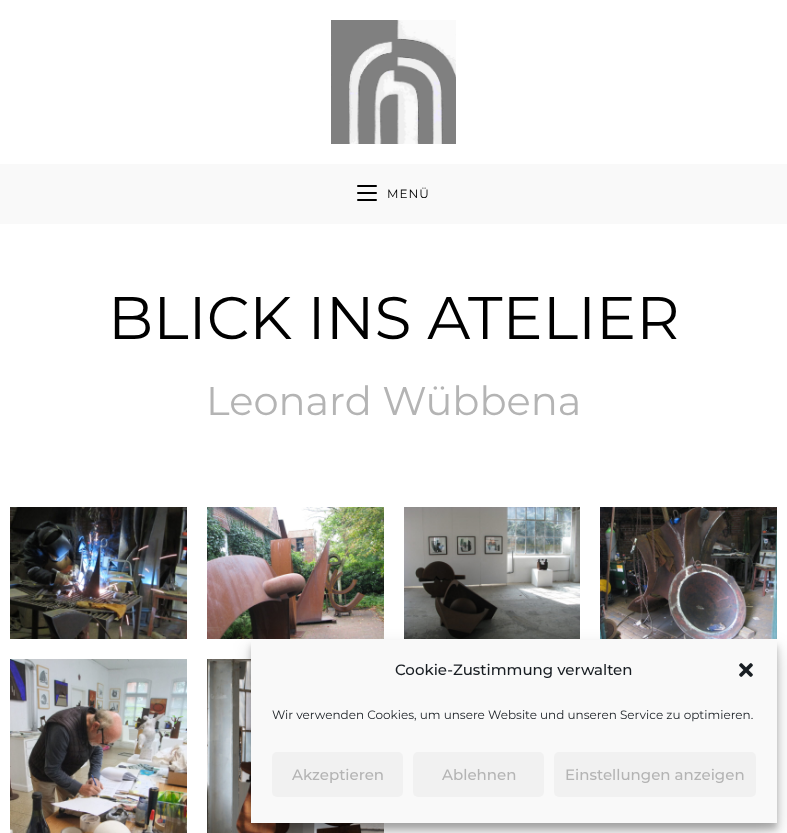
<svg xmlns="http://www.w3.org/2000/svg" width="787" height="833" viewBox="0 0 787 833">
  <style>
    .t1 { font: 12px Montserrat; letter-spacing: 1px; fill: #000; }
    .t2 { font: 60px Montserrat; fill: #000; }
    .t3 { font: 40px Montserrat; fill: #b4b4b4; }
    .t4 { font: 500 15px Montserrat; fill: #191e23; }
    .t5 { font: 12px Montserrat; fill: #191e23; }
    .t6 { font: 500 15px Montserrat; fill: #b4b4b4; }
  </style>
  <rect width="100%" height="100%" fill="#fff"/>
  <image x="331" y="20" width="125" height="124" href="images/1.png"/>
  <rect x="0" y="164" width="787" height="60" fill="#f9f9f9"/>
  <rect x="357" y="192" width="20" height="2" rx="1" fill="#000"/>
  <rect x="357" y="185" width="20" height="2" rx="1" fill="#000"/>
  <rect x="357" y="199" width="20" height="2" rx="1" fill="#000"/>
  <text x="387" y="198" class="t1">MENÜ</text>
  <text x="108" y="339" class="t2">BLICK INS ATELIER</text>
  <text x="206" y="415" class="t3">Leonard Wübbena</text>
  <image x="10" y="507" width="177" height="132" href="images/2.png"/>
  <image x="207" y="507" width="177" height="132" href="images/3.png"/>
  <image x="404" y="507" width="176" height="132" href="images/4.png"/>
  <image x="600" y="507" width="177" height="132" href="images/5.png"/>
  <image x="10" y="659" width="177" height="174" href="images/6.png"/>
  <image x="207" y="659" width="177" height="174" href="images/7.png"/>
  <rect x="251" y="646" width="526" height="183" fill="#0000003b" filter="blur(3px)"/>
  <rect x="251" y="650" width="526" height="183" fill="#00000030" filter="blur(10px)"/>
  <rect x="251" y="640" width="526" height="183" fill="#f9f9f9"/>
  <text x="395" y="675" class="t4">Cookie-Zustimmung verwalten</text>
  <image x="739" y="663" width="14" height="14" href="images/8.png"/>
  <text x="272" y="719" class="t5">Wir verwenden Cookies, um unsere Website und unseren Service zu optimieren.</text>
  <rect x="272" y="752" width="131" height="45" rx="5" fill="#f1f1f1"/>
  <text x="292" y="780" class="t6">Akzeptieren</text>
  <rect x="413" y="752" width="131" height="45" rx="5" fill="#f1f1f1"/>
  <text x="442" y="780" class="t6">Ablehnen</text>
  <rect x="554" y="752" width="202" height="45" rx="5" fill="#f1f1f1"/>
  <text x="565" y="780" class="t6">Einstellungen anzeigen</text>
</svg>
